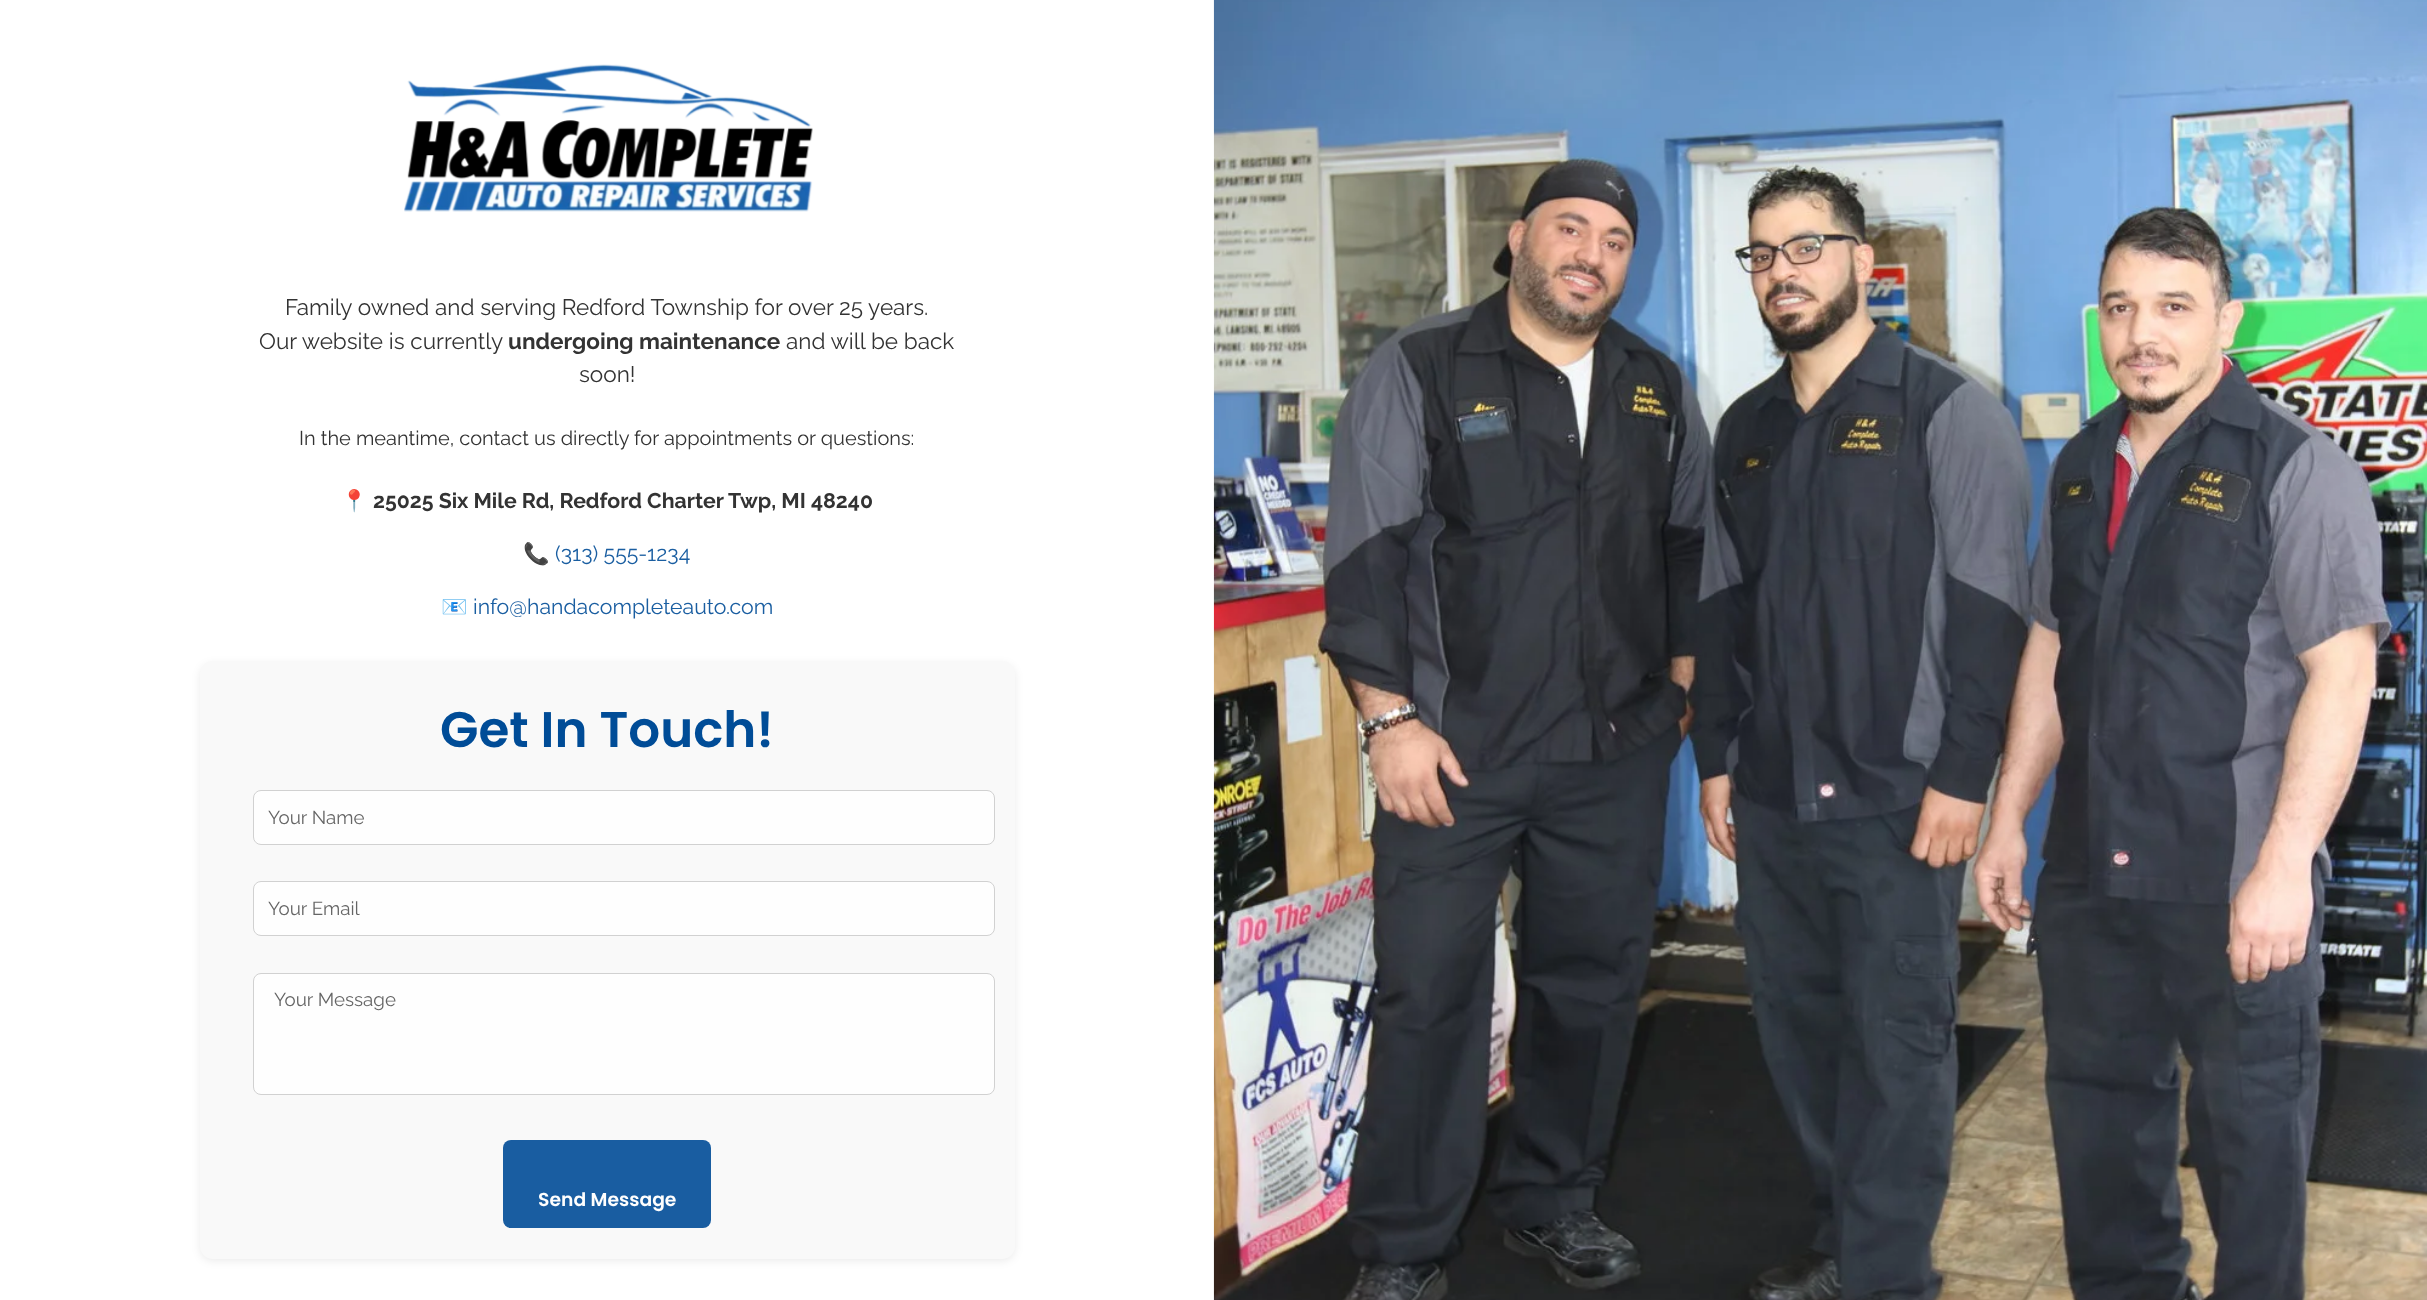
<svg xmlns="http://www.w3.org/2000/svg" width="2427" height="1300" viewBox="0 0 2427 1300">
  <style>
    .t1 { font: 22.5px Raleway; fill: #333; }
    .t2 { font: bold 22.5px Raleway; fill: #333; }
    .t3 { font: 20px Raleway; fill: #333; }
    .t4 { font: 21.25px Noto Color Emoji; fill: #333; }
    .t5 { font: bold 21.25px Raleway; fill: #333; }
    .t6 { font: 21.25px Raleway; fill: #1a5ea1; }
    .t7 { font: 600 50px Poppins; fill: #004c97; }
    .t8 { font: 18.75px Raleway; fill: #656565; }
    .t9 { font: 600 18.75px Poppins; fill: #fefefe; }
  </style>
  <rect width="100%" height="100%" fill="#fff"/>
  <image x="404" y="64" width="409" height="148" href="images/1.png"/>
  <text x="285" y="315" class="t1">Family owned and serving Redford Township for over 25 years.</text>
  <text x="259" y="349" class="t1">Our website is currently</text>
  <text x="508" y="349" class="t2">undergoing maintenance</text>
  <text x="786" y="349" class="t1">and will be back</text>
  <text x="579" y="382" class="t1">soon!</text>
  <text x="299" y="445" class="t3">In the meantime, contact us directly for appointments or questions:</text>
  <text x="341" y="508" class="t4">📍</text>
  <text x="373" y="508" class="t5">25025 Six Mile Rd, Redford Charter Twp, MI 48240</text>
  <text x="523" y="561" class="t4">📞</text>
  <text x="555" y="561" class="t6">(313) 555-1234</text>
  <text x="441" y="614" class="t4">📧</text>
  <text x="473" y="614" class="t6">info@handacompleteauto.com</text>
  <rect x="200" y="664" width="815" height="597" rx="13" fill="#00000014" filter="blur(4px)"/>
  <rect x="200" y="661" width="815" height="598" rx="13" fill="#f9f9f9"/>
  <text x="440" y="747" class="t7">Get In Touch!</text>
  <rect x="253.5" y="790.5" width="741" height="54" rx="7.5" fill="#fefefe" stroke="#d1d1d1"/>
  <text x="268" y="824" class="t8">Your Name</text>
  <rect x="253.5" y="881.5" width="741" height="54" rx="7.5" fill="#fefefe" stroke="#d1d1d1"/>
  <text x="268" y="915" class="t8">Your Email</text>
  <rect x="253.5" y="973.5" width="741" height="121" rx="7.5" fill="#fefefe" stroke="#d1d1d1"/>
  <text x="274" y="1006" class="t8">Your Message</text>
  <rect x="503" y="1140" width="208" height="88" rx="8" fill="#195da1"/>
  <text x="538" y="1206" class="t9">Send Message</text>
  <image x="1213" y="0" width="1214" height="1300" href="images/2.png"/>
</svg>
